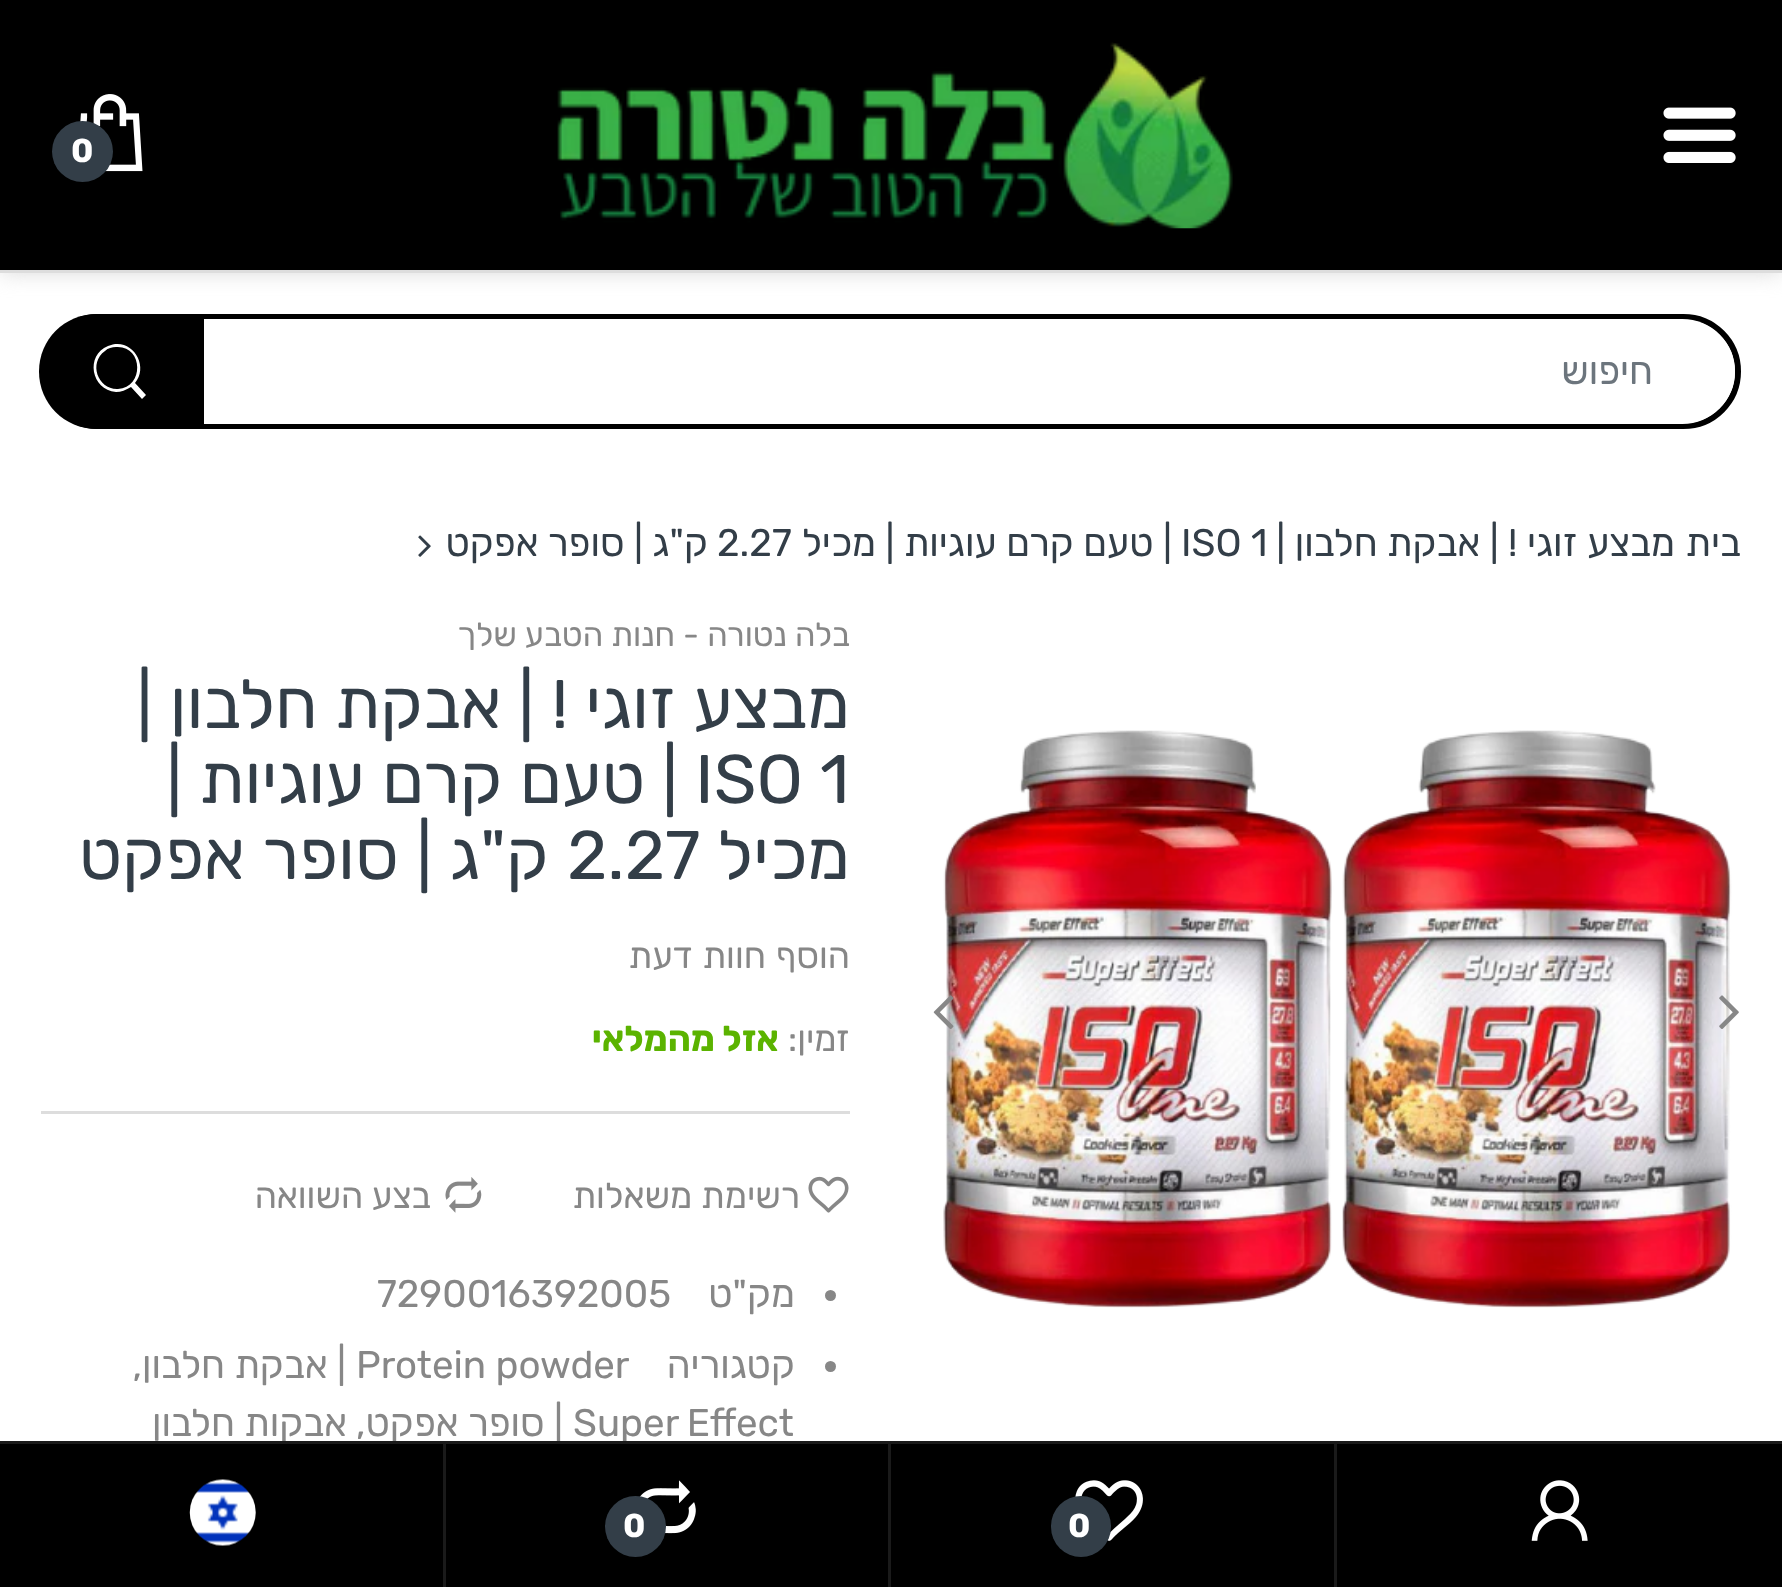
<svg xmlns="http://www.w3.org/2000/svg" width="1782" height="1587" viewBox="0 0 1782 1587">
  <style>
    .t1 { font: bold 33px Rubik; fill: #fff; }
    .t2 { font: 38.5px Rubik; direction: rtl; fill: #6c757d; }
    .t3 { font: 38.5px Rubik; direction: rtl; fill: #333e48; }
    .t4 { font: 38.5px Rubik; fill: #333e48; }
    .t5 { font: 33px Rubik; direction: rtl; fill: #878787; }
    .t6 { font: 68.75px Rubik; direction: rtl; fill: #333e48; }
    .t7 { font: 68.75px Rubik; fill: #333e48; }
    .t8 { font: 35.75px Rubik; direction: rtl; fill: #878787; }
    .t9 { font: bold 35.75px Rubik; direction: rtl; fill: #5bb300; }
    .t10 { font: 38.5px Rubik; direction: rtl; fill: #878787; }
    .t11 { font: 38.5px Rubik; fill: #878787; }
  </style>
  <rect width="100%" height="100%" fill="#fff"/>
  <rect x="0" y="0" width="1782" height="272" fill="#c9c9c9bf" filter="blur(11px)"/>
  <rect x="0" y="0" width="1782" height="270" fill="#000"/>
  <rect x="0" y="270" width="1782" height="3" fill="#ddd"/>
  <image x="1663" y="107" width="73" height="56" href="images/1.png"/>
  <image x="557" y="42" width="676" height="187" href="images/2.png"/>
  <image x="80" y="94" width="63" height="78" href="images/3.png"/>
  <circle cx="82.5" cy="151.5" r="30.5" fill="#333e48"/>
  <text x="71" y="162" class="t1">0</text>
  <rect x="44" y="317" width="1694" height="109" rx="54.5" fill="none" stroke="#000" stroke-width="6"/>
  <rect x="47" y="319" width="1688" height="105" rx="52.5" fill="#fff"/>
  <text x="1653" y="384" class="t2">חיפוש</text>
  <path d="M96.5 314H204V429H96.5C64.5 429 39 403.5 39 371.5C39 339.5 64.5 314 96.5 314Z" fill="#000"/>
  <path d="M108 346C131 336 150 365 135 383L146 395L142 399L131 387C126 390 121 392 116 392C91 390 85 355 108 346ZM116 347C112 347 108 348 105 351C88 363 98 390 118 389C145 387 143 345 116 347Z" fill="#fff"/>
  <text x="1741" y="556" class="t3">בית</text>
  <text x="1675" y="556" class="t3">מבצע זוגי ! | אבקת חלבון |</text>
  <text x="1181" y="556" class="t4">ISO 1</text>
  <text x="1172" y="556" class="t3">| טעם קרם עוגיות | מכיל</text>
  <text x="717" y="556" class="t4">2.27</text>
  <text x="708" y="556" class="t3">ק"ג | סופר אפקט</text>
  <image x="418" y="535" width="13" height="22" href="images/4.png"/>
  <image x="943" y="730" width="789" height="578" href="images/5.png"/>
  <image x="1719" y="995" width="20" height="34" href="images/6.png"/>
  <image x="933" y="995" width="21" height="34" href="images/7.png"/>
  <text x="850" y="646" class="t5">בלה נטורה - חנות הטבע שלך</text>
  <text x="850" y="728" word-spacing="0.25" class="t6">מבצע זוגי ! | אבקת חלבון |</text>
  <text x="695" y="803" class="t7">ISO 1</text>
  <text x="678" y="803" class="t6">| טעם קרם עוגיות |</text>
  <text x="850" y="879" class="t6">מכיל</text>
  <text x="567" y="879" class="t7">2.27</text>
  <text x="549" y="879" word-spacing="0.5" class="t6">ק"ג | סופר אפקט</text>
  <text x="850" y="968" word-spacing="1" class="t8">הוסף חוות דעת</text>
  <rect x="41" y="1111" width="809" height="3" fill="#ddd"/>
  <text x="850" y="1051" class="t8">זמין:</text>
  <text x="779" y="1051" class="t9">אזל מהמלאי</text>
  <image x="808" y="1176" width="41" height="37" href="images/8.png"/>
  <text x="800" y="1208" class="t8">רשימת משאלות</text>
  <image x="445" y="1177" width="37" height="36" href="images/9.png"/>
  <text x="431" y="1208" class="t8">בצע השוואה</text>
  <circle cx="830.5" cy="1295.5" r="5.5" fill="#878787"/>
  <text x="795" y="1307" class="t10">מק"ט</text>
  <text x="377" y="1307" class="t11">7290016392005</text>
  <circle cx="830.5" cy="1366.5" r="5.5" fill="#878787"/>
  <text x="795" y="1378" class="t10">קטגוריה</text>
  <text x="356" y="1378" class="t11">Protein powder</text>
  <text x="346" y="1378" class="t10">| אבקת חלבון,</text>
  <text x="573" y="1436" word-spacing="-1" class="t11">Super Effect</text>
  <text x="563" y="1436" class="t10">| סופר אפקט,</text>
  <text x="347" y="1436" class="t10">אבקות חלבון</text>
  <rect x="0" y="1444" width="1782" height="143" fill="#000"/>
  <rect x="0" y="1441" width="1782" height="3" fill="#1a1a1a"/>
  <image x="1531" y="1480" width="57" height="61" href="images/10.png"/>
  <rect x="1334" y="1444" width="3" height="143" fill="#1a1a1a"/>
  <image x="1075" y="1480" width="68" height="61" href="images/11.png"/>
  <rect x="1051" y="1496" width="60" height="61" rx="30" fill="#333e48"/>
  <text x="1068" y="1537" class="t1">0</text>
  <rect x="888" y="1444" width="3" height="143" fill="#1a1a1a"/>
  <image x="639" y="1480" width="57" height="54" href="images/12.png"/>
  <circle cx="635.5" cy="1526.5" r="30.5" fill="#333e48"/>
  <text x="623" y="1537" class="t1">0</text>
  <rect x="443" y="1444" width="3" height="143" fill="#1a1a1a"/>
  <image x="189" y="1479" width="67" height="67" href="images/13.png"/>
</svg>
